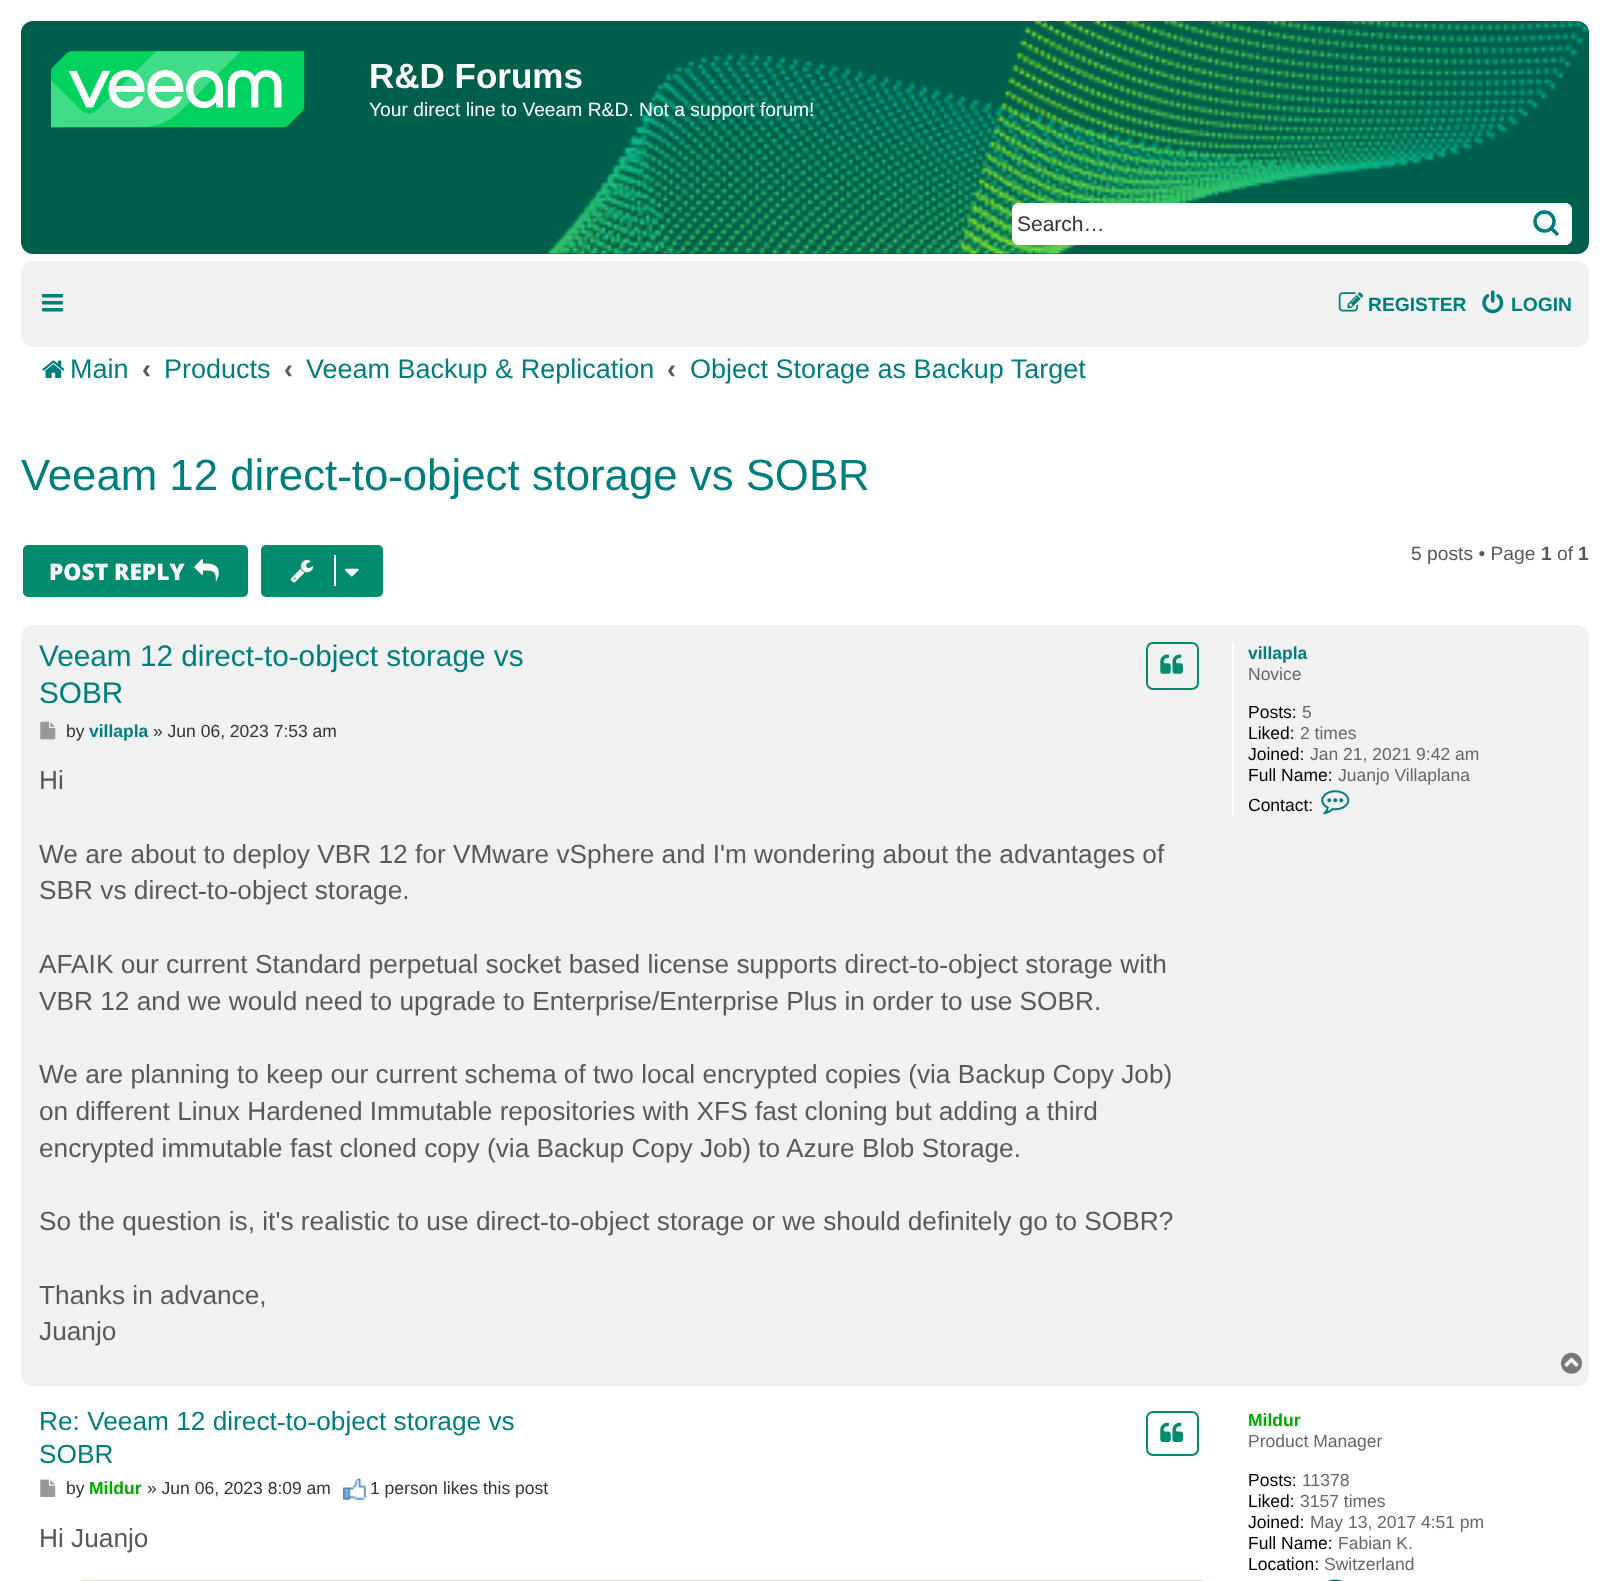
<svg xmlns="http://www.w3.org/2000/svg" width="1609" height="1581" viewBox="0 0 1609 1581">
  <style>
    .t1 { font: bold 35px Liberation Sans; fill: #fff; }
    .t2 { font: 19.25px Liberation Sans; fill: #fff; }
    .t3 { font: 21px Liberation Sans; fill: #333; }
    .t4 { font: bold 19.25px Liberation Sans; fill: #007e7e; }
    .t5 { font: 27px Liberation Sans; fill: #007e7e; }
    .t6 { font: bold 27px Liberation Sans; fill: #58595b; }
    .t7 { font: 43.75px Liberation Sans; fill: #007e7e; }
    .t8 { font: 19.25px Liberation Sans; fill: #58595b; }
    .t9 { font: bold 19.25px Liberation Sans; fill: #58595b; }
    .t10 { font: 800 22.75px Open Sans; fill: #fff; }
    .t11 { font: 29.75px Liberation Sans; fill: #007e7e; }
    .t12 { font: 17.5px Liberation Sans; fill: #333; }
    .t13 { font: bold 17.5px Liberation Sans; fill: #007e7e; }
    .t14 { font: 26.25px Liberation Sans; fill: #58595b; }
    .t15 { font: 17.5px Liberation Sans; fill: #666; }
    .t16 { font: 17.5px Liberation Sans; fill: #000; }
    .t17 { font: 26.25px Liberation Sans; fill: #007e7e; }
    .t18 { font: bold 17.5px Liberation Sans; fill: #0a0; }
  </style>
  <rect width="100%" height="100%" fill="#fff"/>
  <rect x="21" y="21" width="1568" height="233" rx="12" fill="#005f4b"/>
  <image x="548" y="21" width="1041" height="233" href="images/1.png"/>
  <image x="51" y="51" width="254" height="77" href="images/2.png"/>
  <text x="369" y="88" class="t1">R&amp;D Forums</text>
  <text x="369" y="116" class="t2">Your direct line to Veeam R&amp;D. Not a support forum!</text>
  <path d="M1019 203H1519V245H1019C1015 245 1012 242 1012 238V210C1012 206 1015 203 1019 203Z" fill="#fff"/>
  <text x="1017" y="231" class="t3">Search…</text>
  <path d="M1519 203H1565C1569 203 1572 206 1572 210V238C1572 242 1569 245 1565 245H1519Z" fill="#fff"/>
  <circle cx="1544.5" cy="221.5" r="9.5" fill="none" stroke="#007e7e" stroke-width="3.5"/>
  <path d="M1558 235L1551 228" fill="none" stroke="#007e7e" stroke-width="3.5"/>
  <path d="M1520 204H1565C1568.5 204 1571 206.5 1571 210V238C1571 241.5 1568.5 244 1565 244H1520Z" fill="none" stroke="#fff" stroke-width="2"/>
  <rect x="21" y="261" width="1568" height="86" rx="12" fill="#f1f1f1"/>
  <image x="42" y="294" width="21" height="18" href="images/3.png"/>
  <image x="1338" y="292" width="26" height="20" href="images/4.png"/>
  <text x="1368" y="311" class="t4">REGISTER</text>
  <image x="1482" y="290" width="22" height="24" href="images/5.png"/>
  <text x="1511" y="311" class="t4">LOGIN</text>
  <image x="42" y="360" width="23" height="18" href="images/6.png"/>
  <text x="70" y="378" class="t5">Main</text>
  <text x="142" y="378" class="t6">‹</text>
  <text x="164" y="378" class="t5">Products</text>
  <text x="284" y="378" class="t6">‹</text>
  <text x="306" y="378" class="t5">Veeam Backup &amp; Replication</text>
  <text x="667" y="378" class="t6">‹</text>
  <text x="690" y="378" class="t5">Object Storage as Backup Target</text>
  <text x="21" y="490" class="t7">Veeam 12 direct‑to‑object storage vs SOBR</text>
  <rect x="260" y="544" width="124" height="54" rx="6" fill="#028b6d" stroke="#fff" stroke-width="2"/>
  <image x="290" y="560" width="24" height="23" href="images/7.png"/>
  <rect x="334" y="555" width="2" height="31" fill="#fff"/>
  <image x="344" y="568" width="15" height="9" href="images/8.png"/>
  <text x="1411" y="560" class="t8">5 posts • Page</text>
  <text x="1541" y="560" class="t9">1</text>
  <text x="1557" y="560" class="t8">of</text>
  <text x="1578" y="560" class="t9">1</text>
  <rect x="22" y="544" width="227" height="54" rx="6" fill="#028b6d" stroke="#fff" stroke-width="2"/>
  <text x="49" y="580" class="t10">POST REPLY</text>
  <image x="194" y="559" width="25" height="22" href="images/9.png"/>
  <rect x="21" y="625" width="1568" height="761" rx="12" fill="#f1f1f1"/>
  <text x="39" y="666" class="t11">Veeam 12 direct‑to‑object storage vs</text>
  <text x="39" y="703" class="t11">SOBR</text>
  <rect x="1147" y="643" width="51" height="46" rx="6" fill="none" stroke="#028b6d" stroke-width="2"/>
  <image x="1160" y="654" width="23" height="20" href="images/10.png"/>
  <image x="40" y="721" width="16" height="19" href="images/11.png"/>
  <text x="66" y="737" class="t12">by</text>
  <text x="89" y="737" class="t13">villapla</text>
  <text x="153" y="737" class="t12">» Jun 06, 2023 7:53 am</text>
  <text x="39" y="789" class="t14">Hi</text>
  <text x="39" y="863" class="t14">We are about to deploy VBR 12 for VMware vSphere and I'm wondering about the advantages of</text>
  <text x="39" y="899" class="t14">SBR vs direct‑to‑object storage.</text>
  <text x="39" y="973" class="t14">AFAIK our current Standard perpetual socket based license supports direct‑to‑object storage with</text>
  <text x="39" y="1010" class="t14">VBR 12 and we would need to upgrade to Enterprise/Enterprise Plus in order to use SOBR.</text>
  <text x="39" y="1083" class="t14">We are planning to keep our current schema of two local encrypted copies (via Backup Copy Job)</text>
  <text x="39" y="1120" class="t14">on different Linux Hardened Immutable repositories with XFS fast cloning but adding a third</text>
  <text x="39" y="1157" class="t14">encrypted immutable fast cloned copy (via Backup Copy Job) to Azure Blob Storage.</text>
  <text x="39" y="1230" class="t14">So the question is, it's realistic to use direct‑to‑object storage or we should definitely go to SOBR?</text>
  <text x="39" y="1304" class="t14">Thanks in advance,</text>
  <text x="39" y="1340" class="t14">Juanjo</text>
  <rect x="1232" y="642" width="2" height="174" fill="#fff"/>
  <text x="1248" y="659" class="t13">villapla</text>
  <text x="1248" y="680" class="t15">Novice</text>
  <text x="1248" y="718" class="t16">Posts:</text>
  <text x="1302" y="718" class="t15">5</text>
  <text x="1248" y="739" class="t16">Liked:</text>
  <text x="1300" y="739" class="t15">2 times</text>
  <text x="1248" y="760" class="t16">Joined:</text>
  <text x="1310" y="760" class="t15">Jan 21, 2021 9:42 am</text>
  <text x="1248" y="781" class="t16">Full Name:</text>
  <text x="1338" y="781" class="t15">Juanjo Villaplana</text>
  <text x="1248" y="811" class="t16">Contact:</text>
  <image x="1321" y="790" width="29" height="25" href="images/12.png"/>
  <image x="1561" y="1352" width="21" height="22" href="images/13.png"/>
  <text x="39" y="1430" class="t17">Re: Veeam 12 direct‑to‑object storage vs</text>
  <text x="39" y="1463" class="t17">SOBR</text>
  <rect x="1147" y="1412" width="51" height="43" rx="6" fill="none" stroke="#028b6d" stroke-width="2"/>
  <image x="1160" y="1422" width="23" height="20" href="images/14.png"/>
  <image x="40" y="1479" width="16" height="18" href="images/15.png"/>
  <text x="66" y="1494" class="t12">by</text>
  <text x="89" y="1494" class="t18">Mildur</text>
  <text x="147" y="1494" class="t12">» Jun 06, 2023 8:09 am</text>
  <image x="343" y="1478" width="23" height="22" href="images/16.png"/>
  <text x="370" y="1494" class="t12">1 person likes</text>
  <text x="483" y="1494" class="t12">this post</text>
  <text x="39" y="1547" class="t14">Hi Juanjo</text>
  <rect x="83" y="1581" width="1118" height="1" fill="none" stroke="#dbdbce" stroke-width="2"/>
  <text x="1248" y="1426" class="t18">Mildur</text>
  <text x="1248" y="1447" class="t15">Product Manager</text>
  <text x="1248" y="1486" class="t16">Posts:</text>
  <text x="1302" y="1486" class="t15">11378</text>
  <text x="1248" y="1507" class="t16">Liked:</text>
  <text x="1300" y="1507" class="t15">3157 times</text>
  <text x="1248" y="1528" class="t16">Joined:</text>
  <text x="1310" y="1528" class="t15">May 13, 2017 4:51 pm</text>
  <text x="1248" y="1549" class="t16">Full Name:</text>
  <text x="1338" y="1549" class="t15">Fabian K.</text>
  <text x="1248" y="1570" class="t16">Location:</text>
  <text x="1324" y="1570" class="t15">Switzerland</text>
  <image x="1328" y="1579" width="15" height="2" href="images/17.png"/>
</svg>
